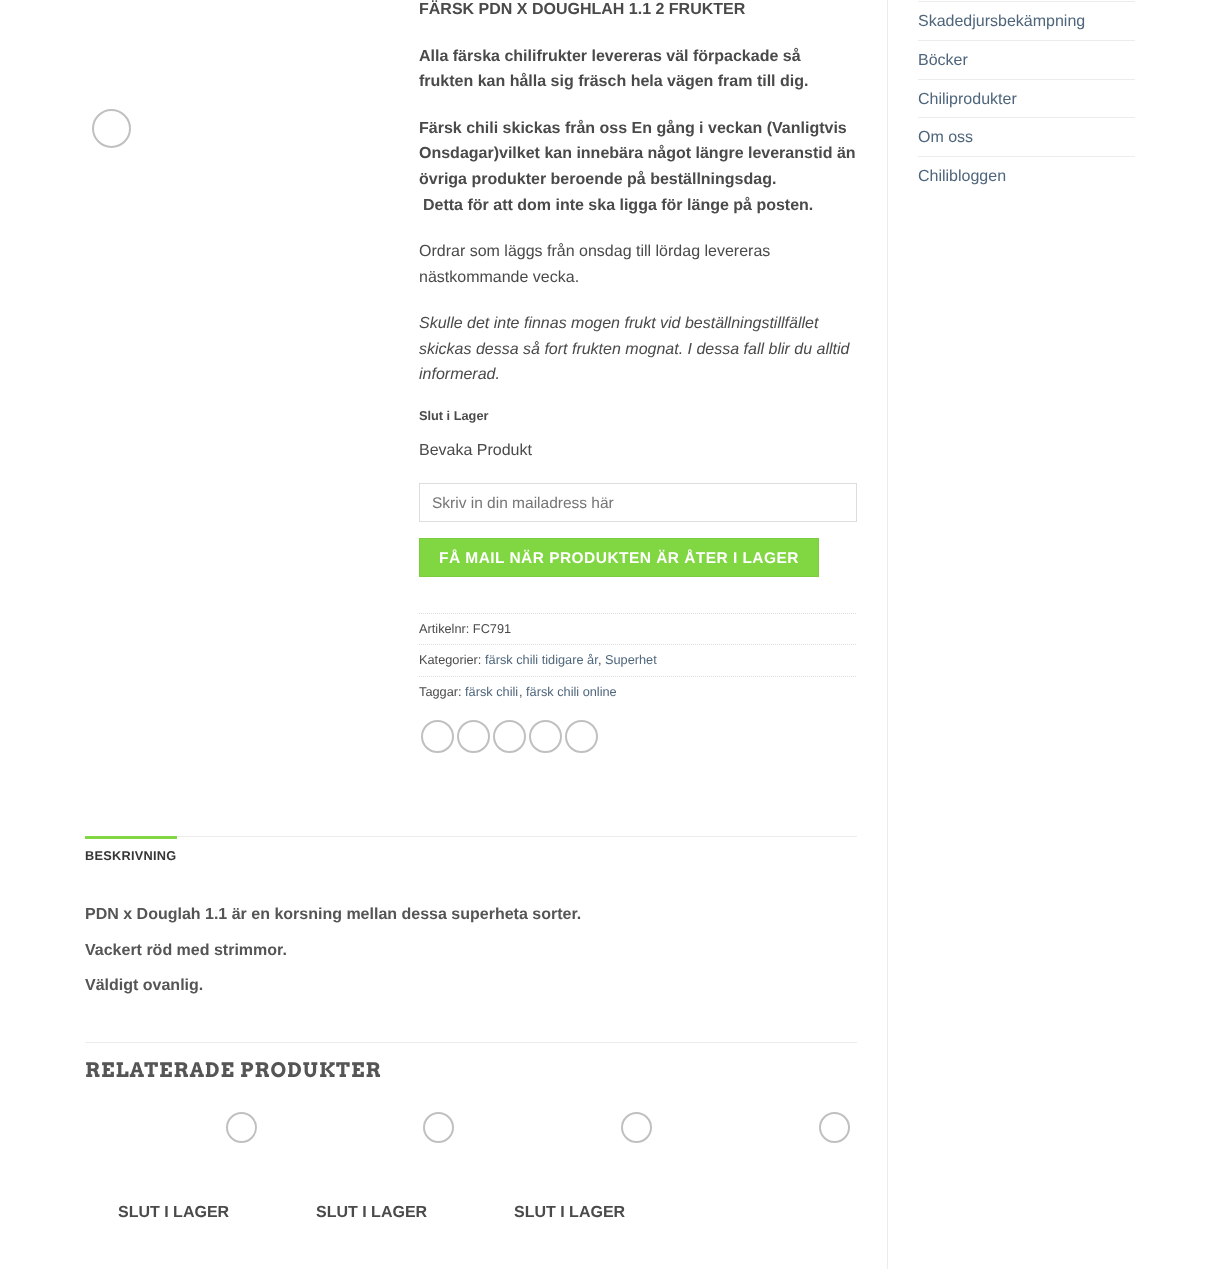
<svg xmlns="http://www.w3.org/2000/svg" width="1220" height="1269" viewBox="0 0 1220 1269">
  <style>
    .t1 { font: bold 16px Liberation Sans; fill: #4a4a4a; }
    .t2 { font: 16px Liberation Sans; fill: #4a4a4a; }
    .t3 { font: italic 16px Liberation Sans; fill: #4a4a4a; }
    .t4 { font: bold 12.75px Liberation Sans; fill: #4a4a4a; }
    .t5 { font: 15.5px Liberation Sans; fill: #757575; }
    .t6 { font: bold 15.5px Liberation Sans; letter-spacing: 0.45px; fill: #fff; }
    .t7 { font: 12.75px Liberation Sans; fill: #4a4a4a; }
    .t8 { font: 12.75px Liberation Sans; fill: #4e657b; }
    .t9 { font: bold 12.75px Liberation Sans; letter-spacing: 0.25px; fill: #363636; }
    .t10 { font: bold 16px Liberation Sans; fill: #555; }
    .t11 { font: bold 20px Arvo; letter-spacing: 1px; fill: #555; }
    .t12 { font: 16px Liberation Sans; fill: #4e657b; }
  </style>
  <rect width="100%" height="100%" fill="#fff"/>
  <rect x="887" y="0" width="1" height="1269" fill="#ececec"/>
  <circle cx="111.5" cy="128.5" r="18.5" fill="none" stroke="#c0c0c0" stroke-width="2"/>
  <text x="419" y="14" class="t1">FÄRSK PDN X DOUGHLAH 1.1 2 FRUKTER</text>
  <text x="419" y="61" class="t1">Alla färska chilifrukter levereras väl förpackade så</text>
  <text x="419" y="86" class="t1">frukten kan hålla sig fräsch hela vägen fram till dig.</text>
  <text x="419" y="133" class="t1">Färsk chili skickas från oss En gång i veckan (Vanligtvis</text>
  <text x="419" y="158" class="t1">Onsdagar)vilket kan innebära något längre leveranstid än</text>
  <text x="419" y="184" class="t1">övriga produkter beroende på beställningsdag.</text>
  <text x="423" y="210" class="t1">Detta för att dom inte ska ligga för länge på posten.</text>
  <text x="419" y="256" class="t2">Ordrar som läggs från onsdag till lördag levereras</text>
  <text x="419" y="282" class="t2">nästkommande vecka.</text>
  <text x="419" y="328" class="t3">Skulle det inte finnas mogen frukt vid beställningstillfället</text>
  <text x="419" y="354" class="t3">skickas dessa så fort frukten mognat. I dessa fall blir du alltid</text>
  <text x="419" y="379" class="t3">informerad.</text>
  <text x="419" y="420" class="t4">Slut i Lager</text>
  <text x="419" y="455" class="t2">Bevaka Produkt</text>
  <rect x="419.5" y="483.5" width="437" height="38" fill="none" stroke="#ddd"/>
  <text x="432" y="508" class="t5">Skriv in din mailadress här</text>
  <rect x="419.5" y="538.5" width="399" height="38" fill="#81d742" stroke="#7bcc3f"/>
  <text x="439" y="563" class="t6">FÅ MAIL NÄR PRODUKTEN ÄR ÅTER I LAGER</text>
  <path d="M419 613.5H857" fill="none" stroke="#ddd" stroke-dasharray="1 1"/>
  <text x="419" y="633" class="t7">Artikelnr: FC791</text>
  <path d="M419 644.5H857" fill="none" stroke="#ddd" stroke-dasharray="1 1"/>
  <text x="419" y="664" class="t7">Kategorier:</text>
  <text x="485" y="664" class="t8">färsk chili tidigare år</text>
  <text x="598" y="664" class="t7">,</text>
  <text x="605" y="664" class="t8">Superhet</text>
  <path d="M419 676.5H857" fill="none" stroke="#ddd" stroke-dasharray="1 1"/>
  <text x="419" y="696" class="t7">Taggar:</text>
  <text x="465" y="696" class="t8">färsk chili</text>
  <text x="519" y="696" class="t7">,</text>
  <text x="526" y="696" class="t8">färsk chili online</text>
  <circle cx="437.5" cy="736.5" r="15.5" fill="none" stroke="#c0c0c0" stroke-width="2"/>
  <circle cx="473.5" cy="736.5" r="15.5" fill="none" stroke="#c0c0c0" stroke-width="2"/>
  <circle cx="509.5" cy="736.5" r="15.5" fill="none" stroke="#c0c0c0" stroke-width="2"/>
  <circle cx="545.5" cy="736.5" r="15.5" fill="none" stroke="#c0c0c0" stroke-width="2"/>
  <circle cx="581.5" cy="736.5" r="15.5" fill="none" stroke="#c0c0c0" stroke-width="2"/>
  <rect x="177" y="836" width="680" height="1" fill="#ececec"/>
  <rect x="85" y="836" width="92" height="3" fill="#81d742"/>
  <text x="85" y="860" class="t9">BESKRIVNING</text>
  <text x="85" y="919" class="t10">PDN x Douglah 1.1 är en korsning mellan dessa superheta sorter.</text>
  <text x="85" y="955" class="t10">Vackert röd med strimmor.</text>
  <text x="85" y="990" class="t10">Väldigt ovanlig.</text>
  <rect x="85" y="1042" width="772" height="1" fill="#ececec"/>
  <text x="85" y="1077" class="t11">RELATERADE PRODUKTER</text>
  <circle cx="834.5" cy="1127.5" r="14.5" fill="none" stroke="#c0c0c0" stroke-width="2"/>
  <circle cx="241.5" cy="1127.5" r="14.5" fill="none" stroke="#c0c0c0" stroke-width="2"/>
  <text x="118" y="1217" class="t1">SLUT I LAGER</text>
  <circle cx="438.5" cy="1127.5" r="14.5" fill="none" stroke="#c0c0c0" stroke-width="2"/>
  <text x="316" y="1217" class="t1">SLUT I LAGER</text>
  <circle cx="636.5" cy="1127.5" r="14.5" fill="none" stroke="#c0c0c0" stroke-width="2"/>
  <text x="514" y="1217" class="t1">SLUT I LAGER</text>
  <rect x="918" y="1" width="217" height="1" fill="#ececec"/>
  <text x="918" y="26" class="t12">Skadedjursbekämpning</text>
  <rect x="918" y="40" width="217" height="1" fill="#ececec"/>
  <text x="918" y="65" class="t12">Böcker</text>
  <rect x="918" y="79" width="217" height="1" fill="#ececec"/>
  <text x="918" y="104" class="t12">Chiliprodukter</text>
  <rect x="918" y="117" width="217" height="1" fill="#ececec"/>
  <text x="918" y="142" class="t12">Om oss</text>
  <rect x="918" y="156" width="217" height="1" fill="#ececec"/>
  <text x="918" y="181" class="t12">Chilibloggen</text>
</svg>
